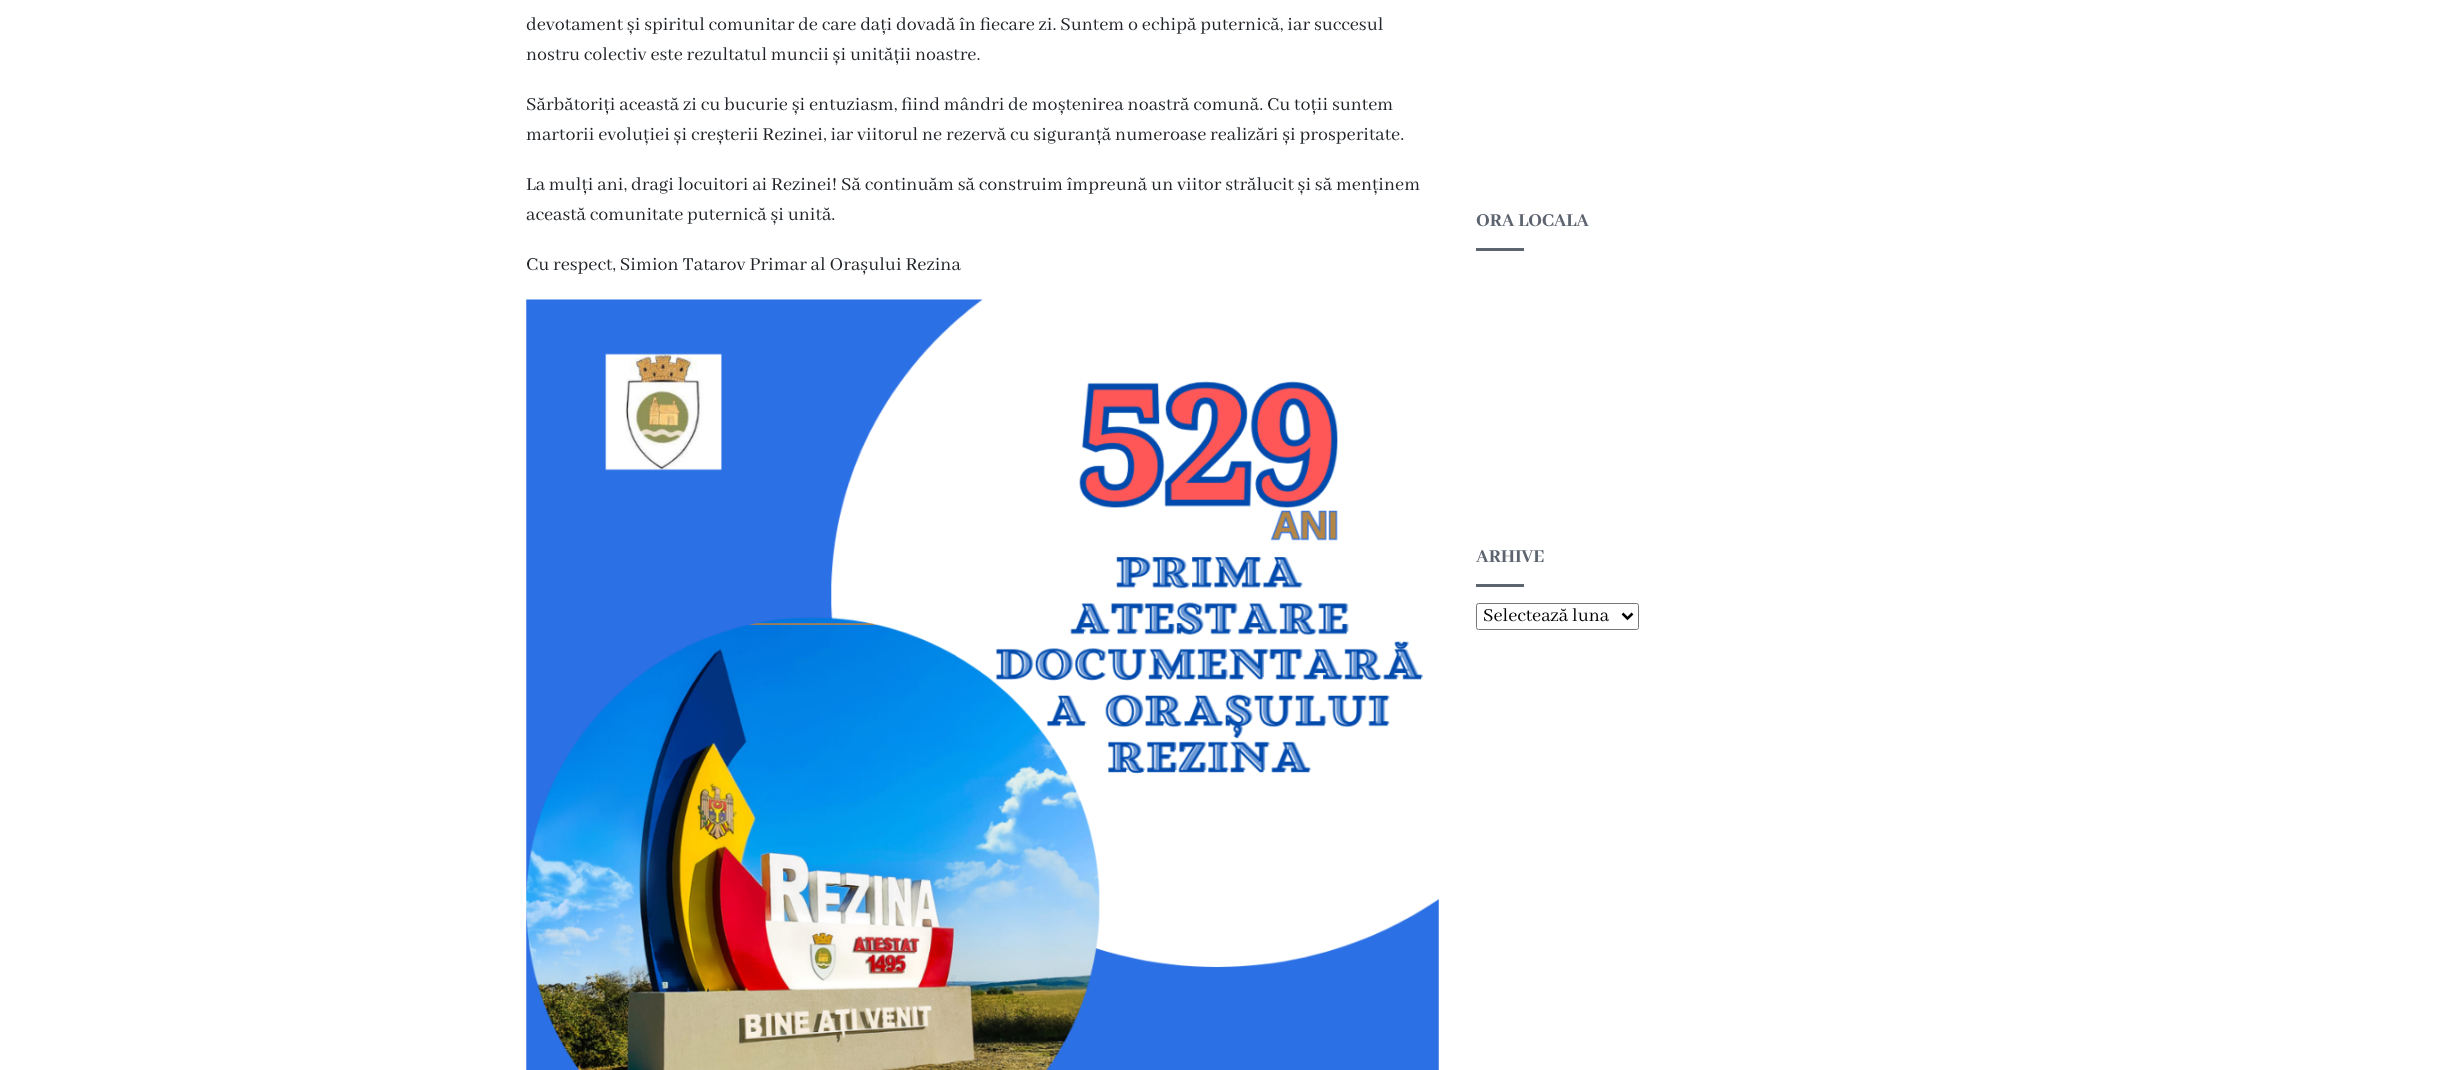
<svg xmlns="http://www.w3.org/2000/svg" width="2439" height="1070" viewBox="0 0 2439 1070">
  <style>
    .t1 { font: 20px Abhaya Libre; fill: #212529; }
    .t2 { font: 800 20px Abhaya Libre ExtraBold; fill: #5d646f; }
    .t3 { font: 20px Abhaya Libre; fill: #000; }
  </style>
  <rect width="100%" height="100%" fill="#fff"/>
  <text x="526" y="30" class="t1">devotament și spiritul comunitar de care dați dovadă în fiecare zi. Suntem o echipă puternică, iar succesul</text>
  <text x="526" y="60" class="t1">nostru colectiv este rezultatul muncii și unității noastre.</text>
  <text x="526" y="110" class="t1">Sărbătoriți această zi cu bucurie și entuziasm, fiind mândri de moștenirea noastră comună. Cu toții suntem</text>
  <text x="526" y="140" class="t1">martorii evoluției și creșterii Rezinei, iar viitorul ne rezervă cu siguranță numeroase realizări și prosperitate.</text>
  <text x="526" y="190" class="t1">La mulți ani, dragi locuitori ai Rezinei! Să continuăm să construim împreună un viitor strălucit și să menținem</text>
  <text x="526" y="220" class="t1">această comunitate puternică și unită.</text>
  <text x="526" y="270" class="t1">Cu respect, Simion Tatarov Primar al Orașului Rezina</text>
  <image x="526" y="299" width="913" height="771" href="images/1.png"/>
  <text x="1476" y="226" class="t2">ORA LOCALA</text>
  <rect x="1476" y="248" width="48" height="3" fill="#5d646f"/>
  <text x="1476" y="562" class="t2">ARHIVE</text>
  <rect x="1476" y="584" width="48" height="3" fill="#5d646f"/>
  <rect x="1476.5" y="603.5" width="162" height="26" rx="2" fill="none" stroke="#767676"/>
  <path d="M1622.5 613.5L1627.5 618.5L1632.5 613.5" fill="none" stroke="#000" stroke-width="2.5"/>
  <text x="1483" y="621" class="t3">Selectează luna</text>
</svg>
